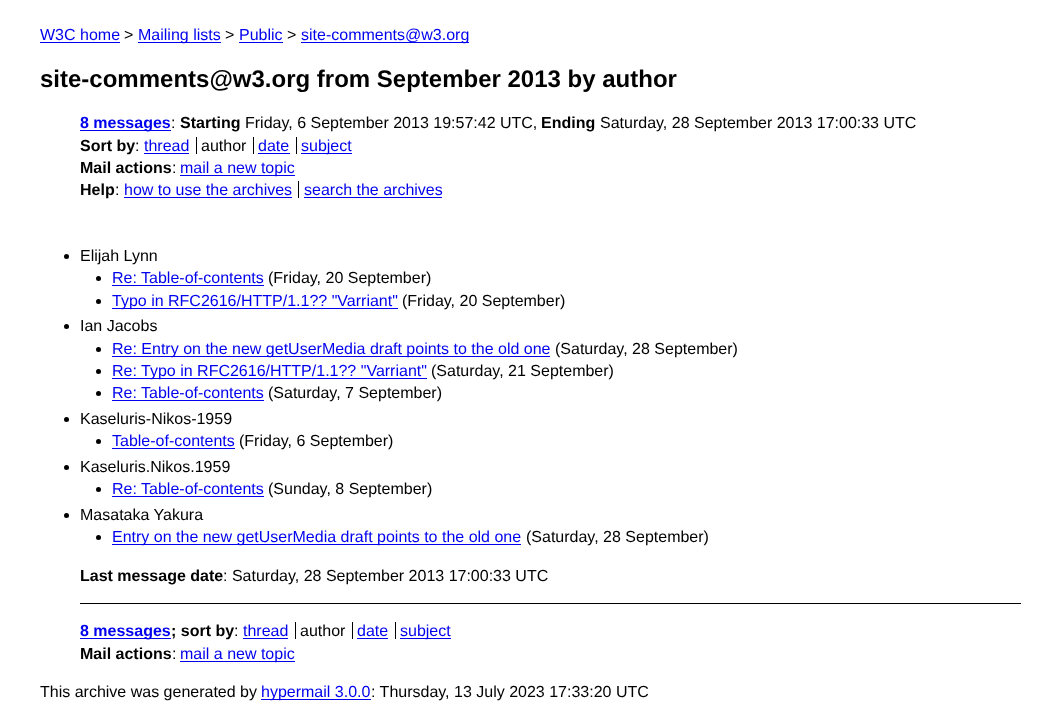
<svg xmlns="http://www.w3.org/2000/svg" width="1061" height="722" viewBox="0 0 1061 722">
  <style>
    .t1 { font: 16px Liberation Sans; fill: #00e; }
    .t2 { font: 16px Liberation Sans; fill: #000; }
    .t3 { font: bold 24px Liberation Sans; fill: #000; }
    .t4 { font: bold 16px Liberation Sans; fill: #00e; }
    .t5 { font: bold 16px Liberation Sans; fill: #000; }
  </style>
  <rect width="100%" height="100%" fill="#fff"/>
  <text x="40" y="40" class="t1">W3C home</text>
  <rect x="40" y="42" width="80" height="1" fill="#00e"/>
  <text x="124" y="40" class="t2">&gt;</text>
  <rect x="138" y="42" width="83" height="1" fill="#00e"/>
  <text x="138" y="40" class="t1">Mailing lists</text>
  <text x="225" y="40" class="t2">&gt;</text>
  <text x="239" y="40" class="t1">Public</text>
  <rect x="239" y="42" width="44" height="1" fill="#00e"/>
  <text x="287" y="40" class="t2">&gt;</text>
  <rect x="301" y="42" width="168" height="1" fill="#00e"/>
  <text x="301" y="40" class="t1">site-comments@w3.org</text>
  <text x="40" y="87" class="t3">site-comments@w3.org from September 2013 by author</text>
  <rect x="80" y="130" width="91" height="1" fill="#00e"/>
  <text x="80" y="128" class="t4">8 messages</text>
  <text x="171" y="128" class="t2">:</text>
  <text x="180" y="128" class="t5">Starting</text>
  <text x="245" y="128" class="t2">Friday, 6 September 2013 19:57:42 UTC,</text>
  <text x="541" y="128" class="t5">Ending</text>
  <text x="600" y="128" class="t2">Saturday, 28 September 2013 17:00:33 UTC</text>
  <text x="80" y="151" class="t5">Sort by</text>
  <text x="135" y="151" class="t2">:</text>
  <text x="144" y="151" class="t1">thread</text>
  <rect x="144" y="153" width="45" height="1" fill="#00e"/>
  <text x="201" y="151" class="t2">author</text>
  <rect x="196" y="137" width="1" height="17" fill="#000"/>
  <text x="258" y="151" class="t1">date</text>
  <rect x="253" y="137" width="1" height="17" fill="#000"/>
  <rect x="296" y="137" width="1" height="17" fill="#000"/>
  <rect x="258" y="153" width="32" height="1" fill="#00e"/>
  <rect x="301" y="153" width="51" height="1" fill="#00e"/>
  <text x="301" y="151" class="t1">subject</text>
  <text x="80" y="173" class="t5">Mail actions</text>
  <text x="172" y="173" class="t2">:</text>
  <rect x="180" y="175" width="115" height="1" fill="#00e"/>
  <text x="180" y="173" class="t1">mail a new topic</text>
  <text x="80" y="195" class="t5">Help</text>
  <text x="115" y="195" class="t2">:</text>
  <text x="124" y="195" class="t1">how to use the archives</text>
  <rect x="124" y="197" width="168" height="1" fill="#00e"/>
  <text x="304" y="195" class="t1">search the archives</text>
  <rect x="298" y="181" width="1" height="17" fill="#000"/>
  <rect x="304" y="197" width="138" height="1" fill="#00e"/>
  <rect x="80" y="603" width="941" height="1" fill="#000"/>
  <circle cx="66.5" cy="256.5" r="2.5" fill="#000"/>
  <text x="80" y="261" class="t2">Elijah Lynn</text>
  <circle cx="98.5" cy="278.5" r="2.5" fill="#000"/>
  <text x="112" y="283" class="t1">Re: Table-of-contents</text>
  <rect x="112" y="285" width="152" height="1" fill="#00e"/>
  <text x="268" y="283" class="t2">(Friday, 20 September)</text>
  <circle cx="98.5" cy="301.5" r="2.5" fill="#000"/>
  <rect x="112" y="308" width="286" height="1" fill="#00e"/>
  <text x="112" y="306" class="t1">Typo in RFC2616/HTTP/1.1?? "Varriant"</text>
  <text x="402" y="306" class="t2">(Friday, 20 September)</text>
  <circle cx="66.5" cy="326.5" r="2.5" fill="#000"/>
  <text x="80" y="331" class="t2">Ian Jacobs</text>
  <circle cx="98.5" cy="349.5" r="2.5" fill="#000"/>
  <rect x="112" y="356" width="438" height="1" fill="#00e"/>
  <text x="112" y="354" class="t1">Re: Entry on the new getUserMedia draft points to the old one</text>
  <text x="555" y="354" class="t2">(Saturday, 28 September)</text>
  <circle cx="98.5" cy="371.5" r="2.5" fill="#000"/>
  <rect x="112" y="378" width="315" height="1" fill="#00e"/>
  <text x="112" y="376" class="t1">Re: Typo in RFC2616/HTTP/1.1?? "Varriant"</text>
  <text x="431" y="376" class="t2">(Saturday, 21 September)</text>
  <circle cx="98.5" cy="393.5" r="2.5" fill="#000"/>
  <text x="112" y="398" class="t1">Re: Table-of-contents</text>
  <rect x="112" y="400" width="152" height="1" fill="#00e"/>
  <text x="268" y="398" class="t2">(Saturday, 7 September)</text>
  <circle cx="66.5" cy="419.5" r="2.5" fill="#000"/>
  <text x="80" y="424" class="t2">Kaseluris-Nikos-1959</text>
  <circle cx="98.5" cy="441.5" r="2.5" fill="#000"/>
  <text x="112" y="446" class="t1">Table-of-contents</text>
  <rect x="112" y="448" width="123" height="1" fill="#00e"/>
  <text x="239" y="446" class="t2">(Friday, 6 September)</text>
  <circle cx="66.5" cy="467.5" r="2.5" fill="#000"/>
  <text x="80" y="472" class="t2">Kaseluris.Nikos.1959</text>
  <circle cx="98.5" cy="489.5" r="2.5" fill="#000"/>
  <text x="112" y="494" class="t1">Re: Table-of-contents</text>
  <rect x="112" y="496" width="152" height="1" fill="#00e"/>
  <text x="268" y="494" class="t2">(Sunday, 8 September)</text>
  <circle cx="66.5" cy="515.5" r="2.5" fill="#000"/>
  <text x="80" y="520" class="t2">Masataka Yakura</text>
  <circle cx="98.5" cy="537.5" r="2.5" fill="#000"/>
  <rect x="112" y="544" width="409" height="1" fill="#00e"/>
  <text x="112" y="542" class="t1">Entry on the new getUserMedia draft points to the old one</text>
  <text x="526" y="542" class="t2">(Saturday, 28 September)</text>
  <text x="80" y="581" class="t5">Last message date</text>
  <text x="223" y="581" class="t2">: Saturday, 28 September 2013 17:00:33 UTC</text>
  <rect x="80" y="638" width="91" height="1" fill="#00e"/>
  <text x="80" y="636" class="t4">8 messages</text>
  <text x="171" y="636" class="t5">; sort by</text>
  <text x="234" y="636" class="t2">:</text>
  <text x="243" y="636" class="t1">thread</text>
  <rect x="243" y="638" width="45" height="1" fill="#00e"/>
  <text x="300" y="636" class="t2">author</text>
  <rect x="295" y="622" width="1" height="17" fill="#000"/>
  <text x="357" y="636" class="t1">date</text>
  <rect x="352" y="622" width="1" height="17" fill="#000"/>
  <rect x="395" y="622" width="1" height="17" fill="#000"/>
  <rect x="357" y="638" width="31" height="1" fill="#00e"/>
  <rect x="400" y="638" width="51" height="1" fill="#00e"/>
  <text x="400" y="636" class="t1">subject</text>
  <text x="80" y="659" class="t5">Mail actions</text>
  <text x="172" y="659" class="t2">:</text>
  <rect x="180" y="661" width="115" height="1" fill="#00e"/>
  <text x="180" y="659" class="t1">mail a new topic</text>
  <text x="40" y="697" class="t2">This archive was generated by</text>
  <rect x="261" y="699" width="110" height="1" fill="#00e"/>
  <text x="261" y="697" class="t1">hypermail 3.0.0</text>
  <text x="371" y="697" class="t2">: Thursday, 13 July 2023 17:33:20 UTC</text>
</svg>
